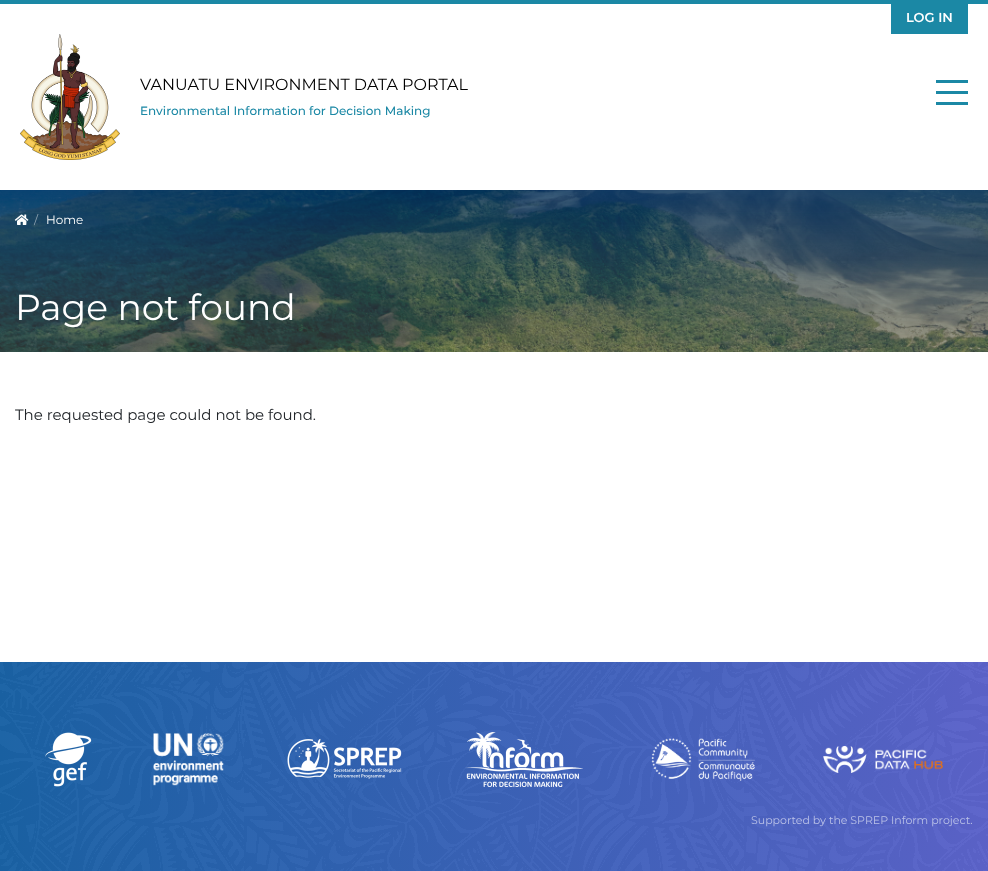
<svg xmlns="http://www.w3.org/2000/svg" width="988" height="871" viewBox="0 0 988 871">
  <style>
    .t1 { font: 600 13px Montserrat; fill: #fff; }
    .t2 { font: 16px Montserrat; fill: #000; }
    .t3 { font: 500 12px Montserrat; fill: #1b88a5; }
    .t4 { font: 12px Montserrat; fill: #8ea3b1; }
    .t5 { font: 12px Montserrat; fill: #fff; }
    .t6 { font: 36px Montserrat; fill: #fff; }
    .t7 { font: 15px Montserrat; fill: #212529; }
    .t8 { font: 11px Montserrat; fill: #bac1e7; }
  </style>
  <defs>
    <linearGradient id="g1" gradientUnits="userSpaceOnUse" x1="0" y1="767" x2="988" y2="767"><stop offset="0" stop-color="#1863a6"/><stop offset="1" stop-color="#5b64cc"/></linearGradient>
  </defs>
  <rect width="100%" height="100%" fill="#fff"/>
  <rect x="0" y="0" width="988" height="4" fill="#1b88a5"/>
  <rect x="891" y="4" width="77" height="30" fill="#1b88a5"/>
  <text x="906" y="22" class="t1">LOG IN</text>
  <image x="20" y="34" width="100" height="126" href="images/1.png"/>
  <text x="140" y="90" class="t2">VANUATU ENVIRONMENT DATA PORTAL</text>
  <text x="140" y="115" class="t3">Environmental Information for Decision Making</text>
  <rect x="936" y="91" width="32" height="3" fill="#1b88a5"/>
  <rect x="936" y="80" width="32" height="3" fill="#1b88a5"/>
  <rect x="936" y="102" width="32" height="3" fill="#1b88a5"/>
  <image x="0" y="190" width="988" height="162" href="images/2.png"/>
  <image x="14" y="214" width="15" height="11" href="images/3.png"/>
  <text x="34" y="224" class="t4">/</text>
  <text x="46" y="224" class="t5">Home</text>
  <text x="15" y="320" class="t6">Page not found</text>
  <text x="15" y="420" class="t7">The requested page could not be found.</text>
  <rect x="0" y="662" width="988" height="209" fill="url(#g1)"/>
  <image x="0" y="662" width="988" height="209" href="images/4.png"/>
  <image x="45" y="732" width="47" height="55" href="images/5.png"/>
  <image x="153" y="733" width="71" height="53" href="images/6.png"/>
  <image x="287" y="738" width="115" height="41" href="images/7.png"/>
  <image x="465" y="732" width="118" height="55" href="images/8.png"/>
  <image x="651" y="738" width="104" height="43" href="images/9.png"/>
  <image x="823" y="746" width="120" height="27" href="images/10.png"/>
  <text x="751" y="824" class="t8">Supported by the SPREP Inform project.</text>
</svg>
